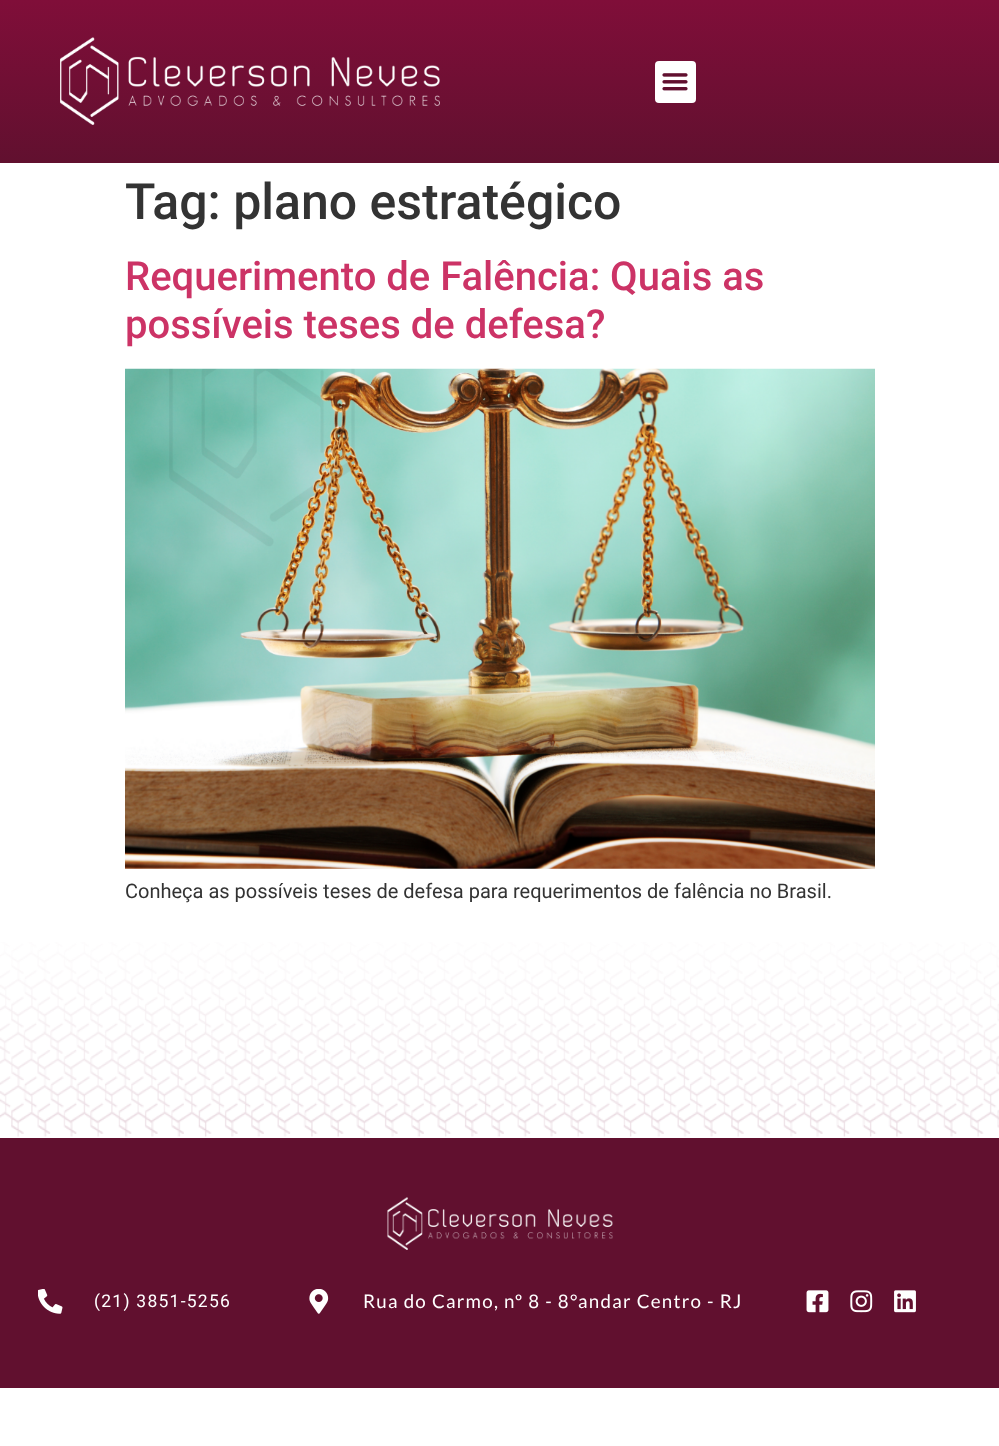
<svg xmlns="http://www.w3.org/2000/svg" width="999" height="1446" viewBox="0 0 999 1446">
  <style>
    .t1 { font: 500 50px Roboto; fill: #333; }
    .t2 { font: 500 40px Roboto; fill: #c36; }
    .t3 { font: 20px Roboto; fill: #333; }
    .t4 { font: 17.5px Roboto; letter-spacing: 1.25px; fill: #fff; }
    .t5 { font: 18.75px Lato; letter-spacing: 1.25px; fill: #fff; }
  </style>
  <defs>
    <linearGradient id="g1" gradientUnits="userSpaceOnUse" x1="500" y1="0" x2="500" y2="163"><stop offset="0" stop-color="#800e39"/><stop offset="1" stop-color="#61102f"/></linearGradient>
  </defs>
  <rect width="100%" height="100%" fill="#fff"/>
  <rect x="0" y="0" width="999" height="163" fill="url(#g1)"/>
  <image x="60" y="37" width="380" height="88" href="images/1.png"/>
  <rect x="655" y="61" width="41" height="42" rx="4" fill="#fff"/>
  <image x="662" y="73" width="26" height="18" href="images/2.png"/>
  <text x="125" y="219" class="t1">Tag: plano estratégico</text>
  <text x="125" y="290" class="t2">Requerimento de Falência: Quais as</text>
  <text x="125" y="338" class="t2">possíveis teses de defesa?</text>
  <image x="125" y="368" width="750" height="501" href="images/3.png"/>
  <text x="125" y="898" class="t3">Conheça as possíveis teses de defesa para requerimentos de falência no Brasil.</text>
  <image x="0" y="942" width="999" height="195" href="images/4.png"/>
  <rect x="0" y="1138" width="999" height="250" fill="#61102f"/>
  <image x="387" y="1197" width="226" height="53" href="images/5.png"/>
  <image x="38" y="1289" width="25" height="25" href="images/6.png"/>
  <text x="94" y="1307" class="t4">(21) 3851-5256</text>
  <image x="309" y="1289" width="20" height="25" href="images/7.png"/>
  <text x="363" y="1308" class="t5">Rua do Carmo, nº 8 - 8°andar Centro - RJ</text>
  <image x="806" y="1290" width="23" height="23" href="images/8.png"/>
  <image x="850" y="1290" width="23" height="23" href="images/9.png"/>
  <image x="894" y="1290" width="22" height="23" href="images/10.png"/>
</svg>
